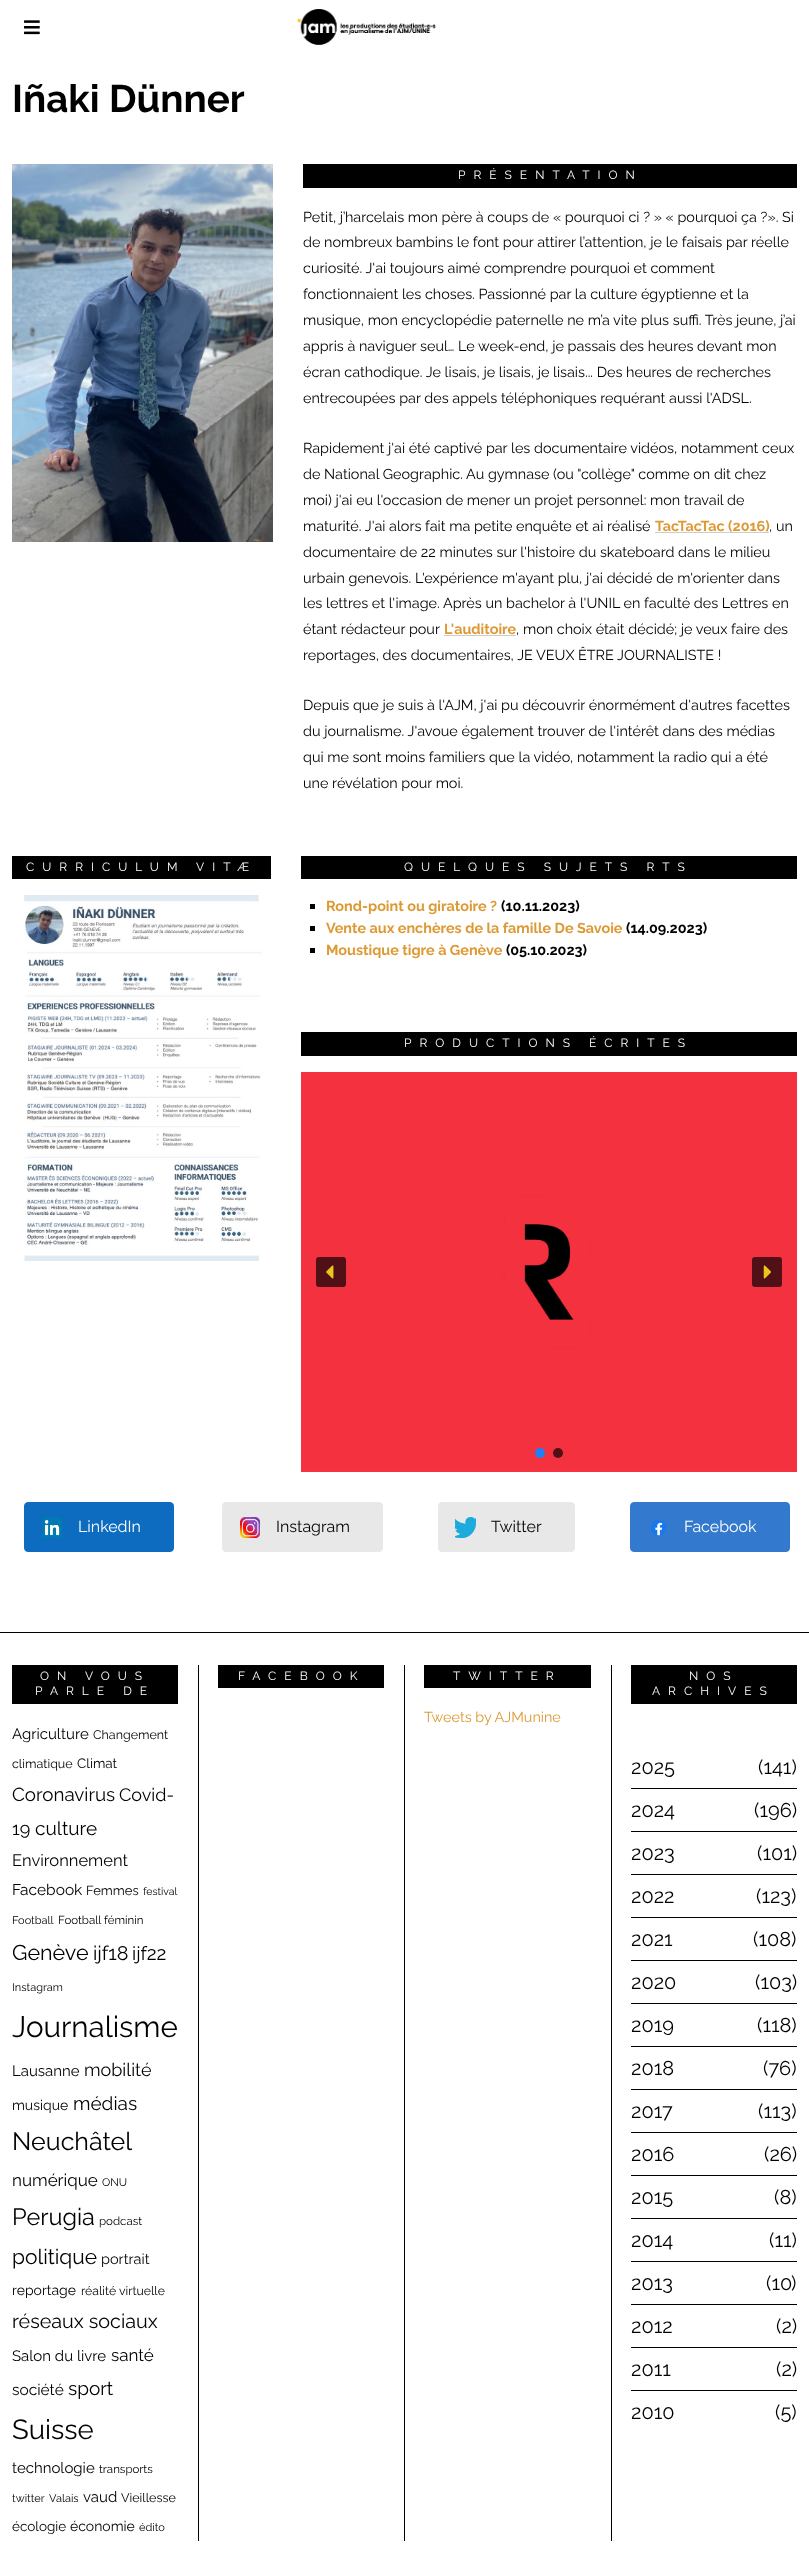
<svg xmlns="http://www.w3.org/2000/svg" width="809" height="2571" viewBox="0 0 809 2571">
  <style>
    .t1 { font: bold 38.5px Raleway; fill: #000; }
    .t2 { font: 12px Raleway; letter-spacing: 8px; fill: #fff; }
    .t3 { font: 14.4px Raleway; fill: #000; }
    .t4 { font: bold 14.4px Raleway; fill: #d93; }
    .t5 { font: bold 14.4px Raleway; fill: #000; }
    .t6 { font: 16px Raleway; fill: #fff; }
    .t7 { font: 16px Raleway; fill: #000; }
    .t8 { font: 15px Raleway; fill: #000; }
    .t9 { font: 12.5px Raleway; fill: #000; }
    .t10 { font: 13.5px Raleway; fill: #000; }
    .t11 { font: 18.75px Raleway; fill: #000; }
    .t12 { font: 18px Raleway; fill: #000; }
    .t13 { font: 19px Raleway; fill: #000; }
    .t14 { font: 16.5px Raleway; fill: #000; }
    .t15 { font: 15.5px Raleway; fill: #000; }
    .t16 { font: 13px Raleway; fill: #000; }
    .t17 { font: 10.5px Raleway; fill: #000; }
    .t18 { font: 11px Raleway; fill: #000; }
    .t19 { font: 11.5px Raleway; fill: #000; }
    .t20 { font: 21.5px Raleway; fill: #000; }
    .t21 { font: 19.75px Raleway; fill: #000; }
    .t22 { font: 29.5px Raleway; fill: #000; }
    .t23 { font: 14px Raleway; fill: #000; }
    .t24 { font: 25px Raleway; fill: #000; }
    .t25 { font: 17px Raleway; fill: #000; }
    .t26 { font: 23.5px Raleway; fill: #000; }
    .t27 { font: 21px Raleway; fill: #000; }
    .t28 { font: 14.5px Raleway; fill: #000; }
    .t29 { font: 12.25px Raleway; fill: #000; }
    .t30 { font: 27.5px Raleway; fill: #000; }
    .t31 { font: 14.4px Raleway; fill: #d93; }
    .t32 { font: 20px Raleway; fill: #000; }
  </style>
  <rect width="100%" height="100%" fill="#fff"/>
  <image x="24" y="20" width="16" height="15" href="images/1.png"/>
  <image x="297" y="9" width="139" height="36" href="images/2.png"/>
  <text x="12" y="112" class="t1">Iñaki Dünner</text>
  <image x="12" y="164" width="261" height="378" href="images/3.png"/>
  <rect x="303" y="164" width="494" height="24" fill="#000"/>
  <text x="458" y="179" class="t2">PRÉSENTATION</text>
  <text x="303" y="222" class="t3">Petit, j’harcelais mon père à coups de « pourquoi ci ? » « pourquoi ça ?». Si</text>
  <text x="303" y="247" class="t3">de nombreux bambins le font pour attirer l’attention, je le faisais par réelle</text>
  <text x="303" y="273" class="t3">curiosité. J'ai toujours aimé comprendre pourquoi et comment</text>
  <text x="303" y="299" class="t3">fonctionnaient les choses. Passionné par la culture égyptienne et la</text>
  <text x="303" y="325" class="t3">musique, mon encyclopédie paternelle ne m’a vite plus suffi. Très jeune, j’ai</text>
  <text x="303" y="351" class="t3">appris à naviguer seul… Le week-end, je passais des heures devant mon</text>
  <text x="303" y="377" class="t3">écran cathodique. Je lisais, je lisais, je lisais... Des heures de recherches</text>
  <text x="303" y="403" class="t3">entrecoupées par des appels téléphoniques requérant aussi l'ADSL.</text>
  <text x="303" y="453" class="t3">Rapidement j'ai été captivé par les documentaire vidéos, notamment ceux</text>
  <text x="303" y="479" class="t3">de National Geographic. Au gymnase (ou "collège" comme on dit chez</text>
  <text x="303" y="505" class="t3">moi) j'ai eu l'occasion de mener un projet personnel: mon travail de</text>
  <text x="303" y="531" class="t3">maturité. J'ai alors fait ma petite enquête et ai réalisé</text>
  <text x="655" y="531" class="t4">TacTacTac (2016)</text>
  <rect x="655" y="532" width="114" height="1" fill="#ccc"/>
  <text x="769" y="531" class="t3">, un</text>
  <text x="303" y="557" class="t3">documentaire de 22 minutes sur l'histoire du skateboard dans le milieu</text>
  <text x="303" y="583" class="t3">urbain genevois. L'expérience m'ayant plu, j'ai décidé de m'orienter dans</text>
  <text x="303" y="608" class="t3">les lettres et l'image. Après un bachelor à l'UNIL en faculté des Lettres en</text>
  <text x="303" y="634" class="t3">étant rédacteur pour</text>
  <text x="444" y="634" class="t4">L'auditoire</text>
  <rect x="444" y="635" width="72" height="1" fill="#ccc"/>
  <text x="516" y="634" class="t3">, mon choix était décidé; je veux faire des</text>
  <text x="303" y="660" class="t3">reportages, des documentaires, JE VEUX ÊTRE JOURNALISTE !</text>
  <text x="303" y="710" class="t3">Depuis que je suis à l'AJM, j'ai pu découvrir énormément d'autres facettes</text>
  <text x="303" y="736" class="t3">du journalisme. J'avoue également trouver de l'intérêt dans des médias</text>
  <text x="303" y="762" class="t3">qui me sont moins familiers que la vidéo, notamment la radio qui a été</text>
  <text x="303" y="788" class="t3">une révélation pour moi.</text>
  <rect x="12" y="856" width="259" height="23" fill="#000"/>
  <text x="26" y="871" class="t2">CURRICULUM VITÆ</text>
  <image x="24" y="895" width="238" height="366" href="images/4.png"/>
  <rect x="301" y="856" width="496" height="23" fill="#000"/>
  <text x="404" y="871" class="t2">QUELQUES SUJETS RTS</text>
  <rect x="310" y="904" width="5" height="5" fill="#000"/>
  <text x="326" y="911" class="t4">Rond-point ou giratoire ?</text>
  <text x="501" y="911" class="t5">(10.11.2023)</text>
  <rect x="310" y="926" width="5" height="5" fill="#000"/>
  <text x="326" y="933" class="t4">Vente aux enchères de la famille De Savoie</text>
  <text x="626" y="933" class="t5">(14.09.2023)</text>
  <rect x="310" y="948" width="5" height="5" fill="#000"/>
  <text x="326" y="955" class="t4">Moustique tigre à Genève</text>
  <text x="506" y="955" class="t5">(05.10.2023)</text>
  <rect x="301" y="1032" width="496" height="24" fill="#000"/>
  <text x="404" y="1047" class="t2">PRODUCTIONS ÉCRITES</text>
  <image x="301" y="1072" width="496" height="400" href="images/5.png"/>
  <image x="505" y="1197" width="84" height="150" href="images/6.png"/>
  <rect x="316" y="1257" width="30" height="30" rx="3" fill="#511015"/>
  <image x="326" y="1265" width="8" height="14" href="images/7.png"/>
  <rect x="752" y="1257" width="30" height="30" rx="3" fill="#511015"/>
  <image x="763" y="1265" width="8" height="14" href="images/8.png"/>
  <circle cx="540" cy="1453" r="5" fill="#1d81f9"/>
  <circle cx="558" cy="1453" r="5" fill="#511015"/>
  <rect x="24.5" y="1502.5" width="149" height="49" rx="3.5" fill="#0d6cbf" stroke="#0d6cbf"/>
  <image x="42" y="1517" width="20" height="21" href="images/9.png"/>
  <text x="78" y="1532" class="t6">LinkedIn</text>
  <rect x="222.5" y="1502.5" width="160" height="49" rx="3.5" fill="#e8e8e8" stroke="#e8e8e8"/>
  <image x="240" y="1517" width="20" height="21" href="images/10.png"/>
  <text x="276" y="1532" class="t7">Instagram</text>
  <rect x="438.5" y="1502.5" width="136" height="49" rx="3.5" fill="#e8e8e8" stroke="#e8e8e8"/>
  <image x="455" y="1517" width="21" height="21" href="images/11.png"/>
  <text x="491" y="1532" class="t7">Twitter</text>
  <rect x="630.5" y="1502.5" width="159" height="49" rx="3.5" fill="#3379ce" stroke="#3379ce"/>
  <image x="651" y="1520" width="16" height="16" href="images/12.png"/>
  <text x="684" y="1532" class="t6">Facebook</text>
  <rect x="0" y="1632" width="809" height="1" fill="#000"/>
  <rect x="12" y="1665" width="166" height="39" fill="#000"/>
  <text x="40" y="1680" class="t2">ON VOUS</text>
  <text x="35" y="1695" class="t2">PARLE DE</text>
  <text x="12" y="1739" class="t8">Agriculture</text>
  <text x="93" y="1739" class="t9">Changement</text>
  <text x="12" y="1768" class="t9">climatique</text>
  <text x="77" y="1768" class="t10">Climat</text>
  <text x="12" y="1801" class="t11">Coronavirus</text>
  <text x="119" y="1801" class="t12">Covid-</text>
  <text x="12" y="1835" class="t12">19</text>
  <text x="35" y="1835" class="t13">culture</text>
  <text x="12" y="1866" class="t14">Environnement</text>
  <text x="12" y="1895" class="t15">Facebook</text>
  <text x="86" y="1895" class="t16">Femmes</text>
  <text x="143" y="1895" class="t17">festival</text>
  <text x="12" y="1924" class="t18">Football</text>
  <text x="58" y="1924" class="t19">Football féminin</text>
  <text x="12" y="1960" class="t20">Genève</text>
  <text x="93" y="1960" class="t21">ijf18</text>
  <text x="132" y="1960" class="t13">ijf22</text>
  <text x="12" y="1991" class="t18">Instagram</text>
  <text x="12" y="2037" class="t22">Journalisme</text>
  <text x="12" y="2076" class="t8">Lausanne</text>
  <text x="84" y="2076" class="t12">mobilité</text>
  <text x="12" y="2110" class="t23">musique</text>
  <text x="73" y="2110" class="t13">médias</text>
  <text x="12" y="2150" class="t24">Neuchâtel</text>
  <text x="12" y="2186" class="t25">numérique</text>
  <text x="102" y="2186" class="t18">ONU</text>
  <text x="12" y="2225" class="t26">Perugia</text>
  <text x="99" y="2225" class="t19">podcast</text>
  <text x="12" y="2264" class="t27">politique</text>
  <text x="101" y="2264" class="t28">portrait</text>
  <text x="12" y="2295" class="t23">reportage</text>
  <text x="81" y="2295" class="t29">réalité virtuelle</text>
  <text x="12" y="2328" class="t21">réseaux sociaux</text>
  <text x="12" y="2361" class="t8">Salon du livre</text>
  <text x="111" y="2361" class="t25">santé</text>
  <text x="12" y="2395" class="t15">société</text>
  <text x="68" y="2395" class="t13">sport</text>
  <text x="12" y="2439" class="t30">Suisse</text>
  <text x="12" y="2473" class="t8">technologie</text>
  <text x="99" y="2473" class="t19">transports</text>
  <text x="12" y="2502" class="t18">twitter</text>
  <text x="49" y="2502" class="t18">Valais</text>
  <text x="83" y="2502" class="t8">vaud</text>
  <text x="121" y="2502" class="t9">Vieillesse</text>
  <text x="12" y="2531" class="t10">écologie</text>
  <text x="70" y="2531" class="t23">économie</text>
  <text x="139" y="2531" class="t18">édito</text>
  <rect x="198" y="1665" width="1" height="876" fill="#000"/>
  <rect x="218" y="1665" width="166" height="23" fill="#000"/>
  <text x="238" y="1680" class="t2">FACEBOOK</text>
  <rect x="404" y="1665" width="1" height="876" fill="#000"/>
  <rect x="424" y="1665" width="167" height="23" fill="#000"/>
  <text x="453" y="1680" class="t2">TWITTER</text>
  <text x="424" y="1722" class="t31">Tweets by AJMunine</text>
  <rect x="611" y="1665" width="1" height="876" fill="#000"/>
  <rect x="631" y="1665" width="166" height="39" fill="#000"/>
  <text x="689" y="1680" class="t2">NOS</text>
  <text x="652" y="1695" class="t2">ARCHIVES</text>
  <text x="631" y="1774" class="t32">2025</text>
  <text x="758" y="1774" class="t32">(141)</text>
  <rect x="631" y="1788" width="166" height="1" fill="#000"/>
  <text x="631" y="1817" class="t32">2024</text>
  <text x="754" y="1817" class="t32">(196)</text>
  <rect x="631" y="1831" width="166" height="1" fill="#000"/>
  <text x="631" y="1860" class="t32">2023</text>
  <text x="757" y="1860" class="t32">(101)</text>
  <rect x="631" y="1874" width="166" height="1" fill="#000"/>
  <text x="631" y="1903" class="t32">2022</text>
  <text x="756" y="1903" class="t32">(123)</text>
  <rect x="631" y="1917" width="166" height="1" fill="#000"/>
  <text x="631" y="1946" class="t32">2021</text>
  <text x="753" y="1946" class="t32">(108)</text>
  <rect x="631" y="1960" width="166" height="1" fill="#000"/>
  <text x="631" y="1989" class="t32">2020</text>
  <text x="755" y="1989" class="t32">(103)</text>
  <rect x="631" y="2003" width="166" height="1" fill="#000"/>
  <text x="631" y="2032" class="t32">2019</text>
  <text x="757" y="2032" class="t32">(118)</text>
  <rect x="631" y="2046" width="166" height="1" fill="#000"/>
  <text x="631" y="2075" class="t32">2018</text>
  <text x="763" y="2075" class="t32">(76)</text>
  <rect x="631" y="2089" width="166" height="1" fill="#000"/>
  <text x="631" y="2118" class="t32">2017</text>
  <text x="758" y="2118" class="t32">(113)</text>
  <rect x="631" y="2132" width="166" height="1" fill="#000"/>
  <text x="631" y="2161" class="t32">2016</text>
  <text x="764" y="2161" class="t32">(26)</text>
  <rect x="631" y="2175" width="166" height="1" fill="#000"/>
  <text x="631" y="2204" class="t32">2015</text>
  <text x="774" y="2204" class="t32">(8)</text>
  <rect x="631" y="2218" width="166" height="1" fill="#000"/>
  <text x="631" y="2247" class="t32">2014</text>
  <text x="769" y="2247" class="t32">(11)</text>
  <rect x="631" y="2261" width="166" height="1" fill="#000"/>
  <text x="631" y="2290" class="t32">2013</text>
  <text x="766" y="2290" class="t32">(10</text>
  <text x="791" y="2290" class="t32">)</text>
  <rect x="631" y="2304" width="166" height="1" fill="#000"/>
  <text x="631" y="2333" class="t32">2012</text>
  <text x="776" y="2333" class="t32">(2)</text>
  <rect x="631" y="2347" width="166" height="1" fill="#000"/>
  <text x="631" y="2376" class="t32">2011</text>
  <text x="776" y="2376" class="t32">(2)</text>
  <rect x="631" y="2390" width="166" height="1" fill="#000"/>
  <text x="631" y="2419" class="t32">2010</text>
  <text x="775" y="2419" class="t32">(5)</text>
</svg>
